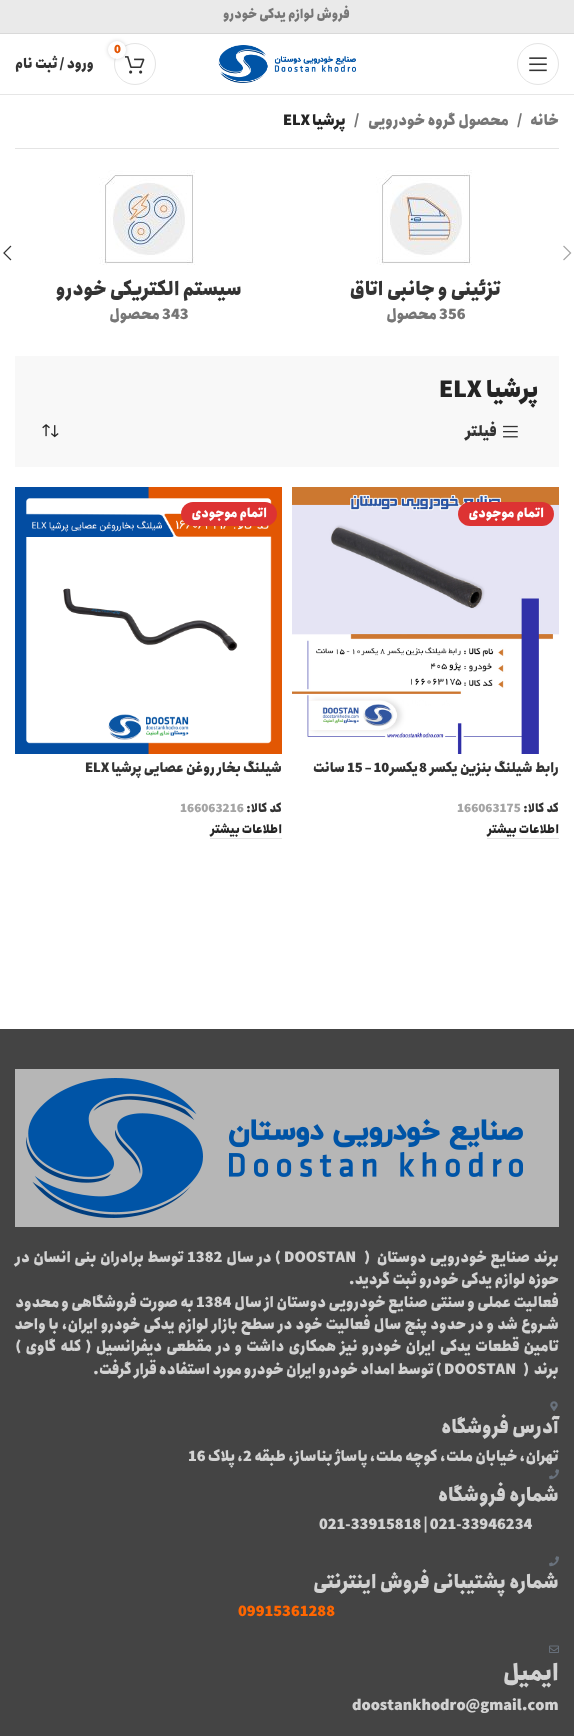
<svg xmlns="http://www.w3.org/2000/svg" width="574" height="1736" viewBox="0 0 574 1736">
  <style>
    .t1 { font: 900 12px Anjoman; direction: rtl; fill: #767676; }
    .t2 { font: 900 11px Anjoman; fill: #e45604; }
    .t3 { font: 900 13px Anjoman; direction: rtl; fill: #333; }
    .t4 { font: 900 14px Anjoman; direction: rtl; fill: #767676; }
    .t5 { font: 900 14px Anjoman; fill: #767676; }
    .t6 { font: 900 14px Anjoman; direction: rtl; fill: #242424; }
    .t7 { font: 900 14px Anjoman; fill: #242424; }
    .t8 { font: 900 18px Anjoman; direction: rtl; fill: #333; }
    .t9 { font: 900 22px Anjoman; direction: rtl; fill: #242424; }
    .t10 { font: 900 22px Anjoman; fill: #242424; }
    .t11 { font: 900 14px Anjoman; direction: rtl; fill: #333; }
    .t12 { font: 900 12px Anjoman; direction: rtl; fill: #fff; }
    .t13 { font: 900 12.6px Anjoman; direction: rtl; fill: #333; }
    .t14 { font: 900 12.6px Anjoman; fill: #333; }
    .t15 { font: 900 11.25px Anjoman; direction: rtl; fill: #333; }
    .t16 { font: 900 11.25px Anjoman; fill: #a5a5a5; }
    .t17 { font: 900 11.25px Anjoman; direction: rtl; fill: #242424; }
    .t18 { font: 900 14px Anjoman; direction: rtl; fill: #d2d2d2; }
    .t19 { font: 900 14px Anjoman; fill: #d2d2d2; }
    .t20 { font: 900 18px Anjoman; direction: rtl; fill: #d2d2d2; }
    .t21 { font: 900 14px Anjoman; fill: #f60; }
    .t22 { font: 900 22px Anjoman; direction: rtl; fill: #d2d2d2; }
  </style>
  <rect width="100%" height="100%" fill="#fff"/>
  <rect x="0" y="0" width="574" height="33" fill="#eaeaea"/>
  <rect x="0" y="33" width="574" height="1" fill="#d9d9d9"/>
  <text x="350" y="18" class="t1">فروش لوازم یدکی خودرو</text>
  <rect x="0" y="94" width="574" height="1" fill="#e6e6e6"/>
  <circle cx="538" cy="64" r="20.5" fill="none" stroke="#e4e4e4"/>
  <image x="529" y="57" width="18" height="15" href="images/1.png"/>
  <image x="218" y="45" width="138" height="38" href="images/2.png"/>
  <circle cx="135" cy="64" r="20.5" fill="none" stroke="#e4e4e4"/>
  <image x="125" y="56" width="20" height="18" href="images/3.png"/>
  <rect x="108" y="41" width="18" height="18" rx="9" fill="#0000002b" filter="blur(2px)"/>
  <circle cx="117" cy="50" r="9" fill="#fff"/>
  <text x="114" y="53" class="t2">0</text>
  <text x="94" y="68" class="t3">ورود / ثبت نام</text>
  <text x="559" y="125" class="t4">خانه</text>
  <text x="517" y="125" class="t5">/</text>
  <text x="509" y="125" class="t4">محصول گروه خودرویی</text>
  <text x="354" y="125" class="t5">/</text>
  <text x="346" y="125" class="t6">پرشيا</text>
  <text x="283" y="125" class="t7">ELX</text>
  <rect x="15" y="148" width="544" height="1" fill="#e4e4e4"/>
  <image x="563" y="245" width="9" height="16" href="images/4.png"/>
  <image x="3" y="245" width="9" height="16" href="images/5.png"/>
  <image x="376" y="170" width="96" height="95" href="images/6.png"/>
  <text x="501" y="295" class="t8">تزئینی و جانبی اتاق</text>
  <text x="439" y="319" class="t5">356</text>
  <text x="437" y="319" class="t4">محصول</text>
  <image x="99" y="170" width="96" height="95" href="images/7.png"/>
  <text x="242" y="295" class="t8">سیستم الکتریکی خودرو</text>
  <text x="162" y="319" class="t5">343</text>
  <text x="160" y="319" class="t4">محصول</text>
  <rect x="15" y="356" width="544" height="111" fill="#f8f8f8"/>
  <text x="539" y="397" class="t9">پرشيا</text>
  <text x="439" y="397" class="t10">ELX</text>
  <image x="503" y="425" width="15" height="13" href="images/8.png"/>
  <text x="497" y="436" class="t11">فیلتر</text>
  <image x="42" y="424" width="17" height="14" href="images/9.png"/>
  <image x="292" y="487" width="267" height="267" href="images/10.png"/>
  <rect x="458" y="502" width="96" height="24" rx="12" fill="#d33"/>
  <text x="544" y="517" class="t12">اتمام موجودی</text>
  <text x="559" y="772" class="t13">رابط شیلنگ بنزین یکسر</text>
  <text x="419" y="772" class="t14">8</text>
  <text x="347" y="772" class="t14">15 – 10</text>
  <text x="418" y="772" class="t13">یکسر</text>
  <text x="345" y="772" class="t13">سانت</text>
  <text x="559" y="812" class="t15">کد کالا:</text>
  <text x="457" y="812" class="t16">166063175</text>
  <rect x="487" y="838" width="72" height="1" fill="#e4e4e4"/>
  <text x="559" y="833" class="t17">اطلاعات بیشتر</text>
  <image x="15" y="487" width="267" height="267" href="images/11.png"/>
  <rect x="181" y="502" width="96" height="24" rx="12" fill="#d33"/>
  <text x="267" y="517" class="t12">اتمام موجودی</text>
  <text x="282" y="772" class="t13">شيلنگ بخار روغن عصايی پرشيا</text>
  <text x="85" y="772" class="t14">ELX</text>
  <text x="282" y="812" class="t15">کد کالا:</text>
  <text x="180" y="812" class="t16">166063216</text>
  <rect x="210" y="838" width="72" height="1" fill="#e4e4e4"/>
  <text x="282" y="833" class="t17">اطلاعات بیشتر</text>
  <rect x="0" y="1029" width="574" height="707" fill="#444"/>
  <rect x="15" y="1069" width="544" height="158" fill="#b6b6b6"/>
  <image x="26" y="1078" width="497" height="140" href="images/12.png"/>
  <text x="559" y="1262" word-spacing="1" class="t18" xml:space="preserve">برند صنایع خودرویی دوستان  (</text>
  <text x="284" y="1262" class="t19">DOOSTAN</text>
  <text x="281" y="1262" word-spacing="1" class="t18">) در سال</text>
  <text x="187" y="1262" class="t19">1382</text>
  <text x="184" y="1262" word-spacing="1" class="t18">توسط برادران بنی انسان در</text>
  <text x="559" y="1284" class="t18">حوزه لوازم یدکی خودرو ثبت گردید.</text>
  <text x="559" y="1307" class="t18">فعالیت عملی و سنتی صنایع خودرویی دوستان از سال</text>
  <text x="196" y="1307" class="t19">1384</text>
  <text x="194" y="1307" class="t18">به صورت فروشگاهی و محدود</text>
  <text x="559" y="1329" word-spacing="0.75" class="t18">شـروع شد و در حدود پنج سال فعالیت خود در سطح بازار لوازم یدکی خودرو ایران، با واحد</text>
  <text x="559" y="1351" word-spacing="1.75" class="t18">تامین قطعات یدکی ایران خودرو نیز همکاری داشت و در مقطعی دیفرانسیل ( کله گاوی )</text>
  <text x="559" y="1374" class="t18" xml:space="preserve">برند  (</text>
  <text x="444" y="1374" class="t19">DOOSTAN</text>
  <text x="442" y="1374" class="t18">) توسط امداد خودرو ایران خودرو مورد استفاده قرار گرفت.</text>
  <image x="550" y="1401" width="8" height="10" href="images/13.png"/>
  <text x="559" y="1433" class="t20">آدرس فروشگاه</text>
  <text x="559" y="1461" class="t18">تهران، خیابان ملت، کوچه ملت، پاساژ بناساز، طبقه</text>
  <text x="243" y="1461" class="t19">2</text>
  <text x="243" y="1461" class="t18">، پلاک</text>
  <text x="188" y="1461" class="t19">16</text>
  <image x="549" y="1469" width="10" height="11" href="images/14.png"/>
  <text x="559" y="1501" class="t20">شماره فروشگاه</text>
  <text x="319" y="1529" class="t19">021-33915818 | 021-33946234</text>
  <image x="549" y="1556" width="10" height="11" href="images/14.png"/>
  <text x="559" y="1588" class="t20">شماره پشتیبانی فروش اینترنتی</text>
  <text x="238" y="1616" class="t21">09915361288</text>
  <image x="549" y="1645" width="10" height="8" href="images/15.png"/>
  <text x="559" y="1680" class="t22">ایمیل</text>
  <text x="352" y="1710" class="t19">doostankhodro@gmail.com</text>
</svg>
